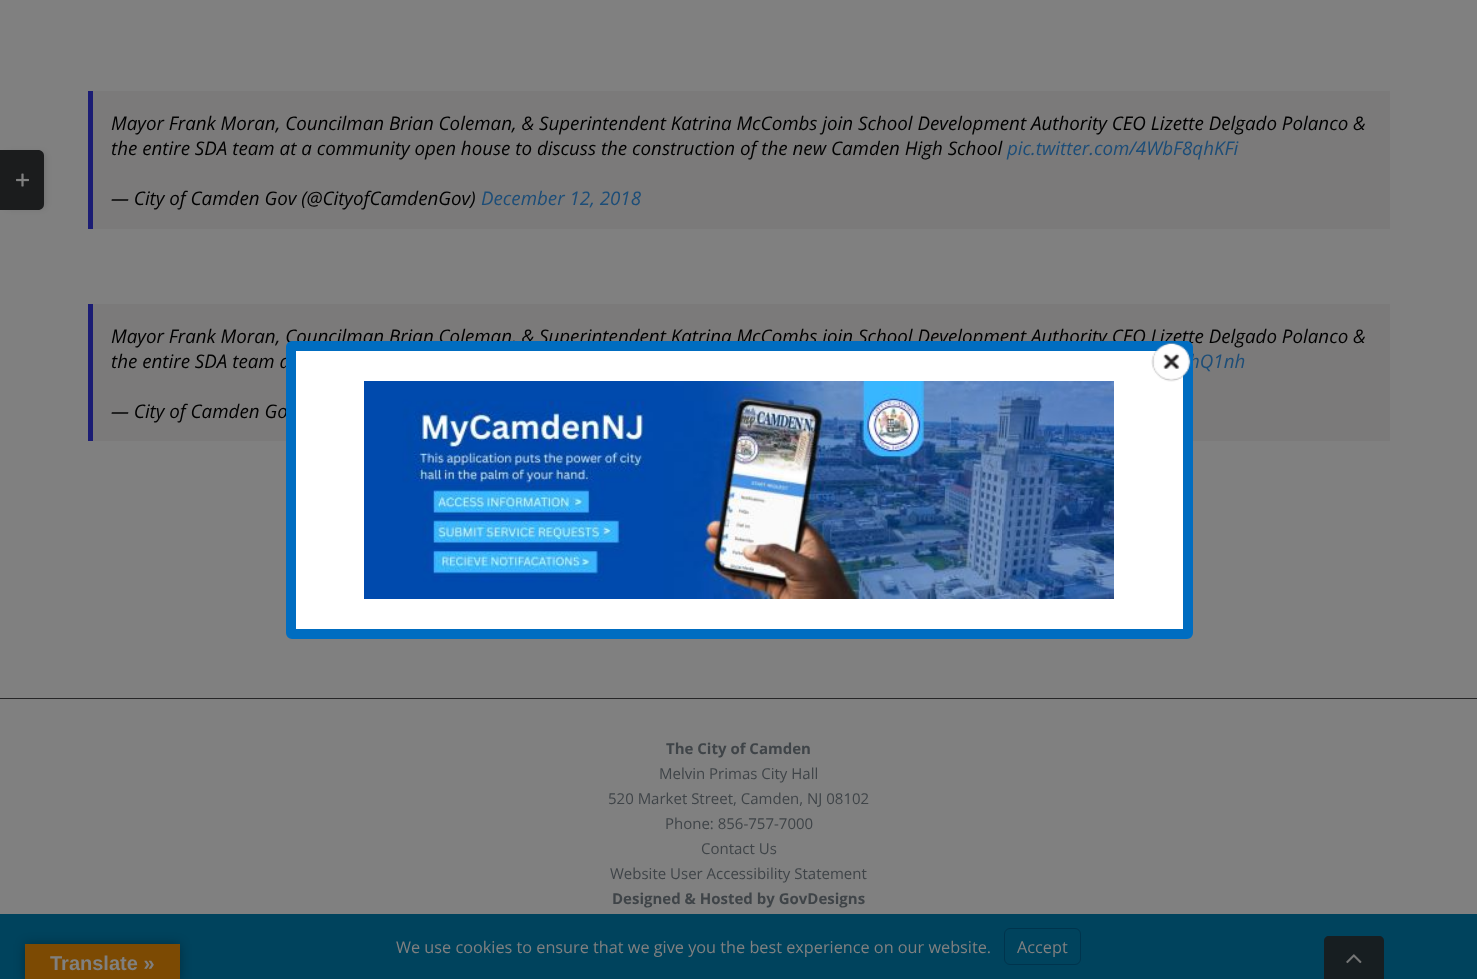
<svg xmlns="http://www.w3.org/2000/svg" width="1477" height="979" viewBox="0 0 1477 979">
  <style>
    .t1 { font: italic 18.75px Open Sans; fill: #000; }
    .t2 { font: italic 18.75px Open Sans; fill: #1c4d78; }
    .t3 { font: bold 15px Open Sans; fill: #3f4448; }
    .t4 { font: 15px Open Sans; fill: #3f4448; }
    .t5 { font: 16.25px Open Sans; fill: #808080; }
    .t6 { font: bold 20px Liberation Sans; fill: #808080; }
  </style>
  <rect width="100%" height="100%" fill="#808080"/>
  <rect x="6" y="153" width="39" height="55" rx="4" fill="#00000024" filter="blur(3px)"/>
  <path d="M0 150H38C41.5 150 44 152.5 44 156V204C44 207.5 41.5 210 38 210H0Z" fill="#1b1c1d"/>
  <image x="16" y="173" width="13" height="14" href="images/1.png"/>
  <rect x="93" y="91" width="1297" height="138" fill="#7b7a7a"/>
  <rect x="88" y="91" width="5" height="138" fill="#1b1c74"/>
  <text x="111" y="130" class="t1">Mayor Frank Moran, Councilman Brian Coleman, &amp; Superintendent Katrina McCombs join School Development Authority CEO Lizette Delgado Polanco &amp;</text>
  <text x="111" y="155" class="t1">the entire SDA team at a community open house to discuss the construction of the new Camden High School</text>
  <text x="1007" y="155" class="t2">pic.twitter.com/4WbF8qhKFi</text>
  <text x="111" y="205" class="t1">— City of Camden Gov (@CityofCamdenGov)</text>
  <text x="481" y="205" class="t2">December 12, 2018</text>
  <rect x="93" y="304" width="1297" height="137" fill="#7b7a7a"/>
  <rect x="88" y="304" width="5" height="137" fill="#1b1c74"/>
  <text x="111" y="343" class="t1">Mayor Frank Moran, Councilman Brian Coleman, &amp; Superintendent Katrina McCombs join School Development Authority CEO Lizette Delgado Polanco &amp;</text>
  <text x="111" y="368" class="t1">the entire SDA team a</text>
  <text x="1189" y="368" class="t2">hQ1nh</text>
  <text x="111" y="418" class="t1">— City of Camden Go</text>
  <rect x="0" y="698" width="1477" height="1" fill="#262627"/>
  <text x="666" y="754" class="t3">The City of Camden</text>
  <text x="659" y="779" class="t4">Melvin Primas City Hall</text>
  <text x="608" y="804" class="t4">520 Market Street, Camden, NJ 08102</text>
  <text x="665" y="829" class="t4">Phone: 856-757-7000</text>
  <text x="701" y="854" class="t4">Contact Us</text>
  <text x="610" y="879" class="t4">Website User Accessibility Statement</text>
  <text x="612" y="904" class="t3">Designed &amp; Hosted by GovDesigns</text>
  <rect x="291" y="346" width="897" height="288" rx="1" fill="#fff" stroke="#006dc1" stroke-width="10"/>
  <image x="364" y="381" width="750" height="218" href="images/2.png"/>
  <image x="1151" y="342" width="41" height="40" href="images/3.png"/>
  <rect x="0" y="914" width="1477" height="65" fill="#00435d"/>
  <text x="396" y="953" class="t5">We use cookies to ensure that we give you the best experience on our website.</text>
  <rect x="1004.5" y="928.5" width="76" height="36" rx="5.5" fill="none" stroke="#00344d"/>
  <text x="1017" y="953" class="t5">Accept</text>
  <rect x="25" y="944" width="155" height="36" fill="#0000004d" filter="blur(5.5px)"/>
  <rect x="25" y="944" width="155" height="35" fill="#7c4a03"/>
  <text x="50" y="970" class="t6">Translate »</text>
  <path d="M1329 936H1379C1382 936 1384 938 1384 941V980H1324V941C1324 938 1326 936 1329 936Z" fill="#171e21"/>
  <image x="1346" y="954" width="16" height="10" href="images/4.png"/>
</svg>
